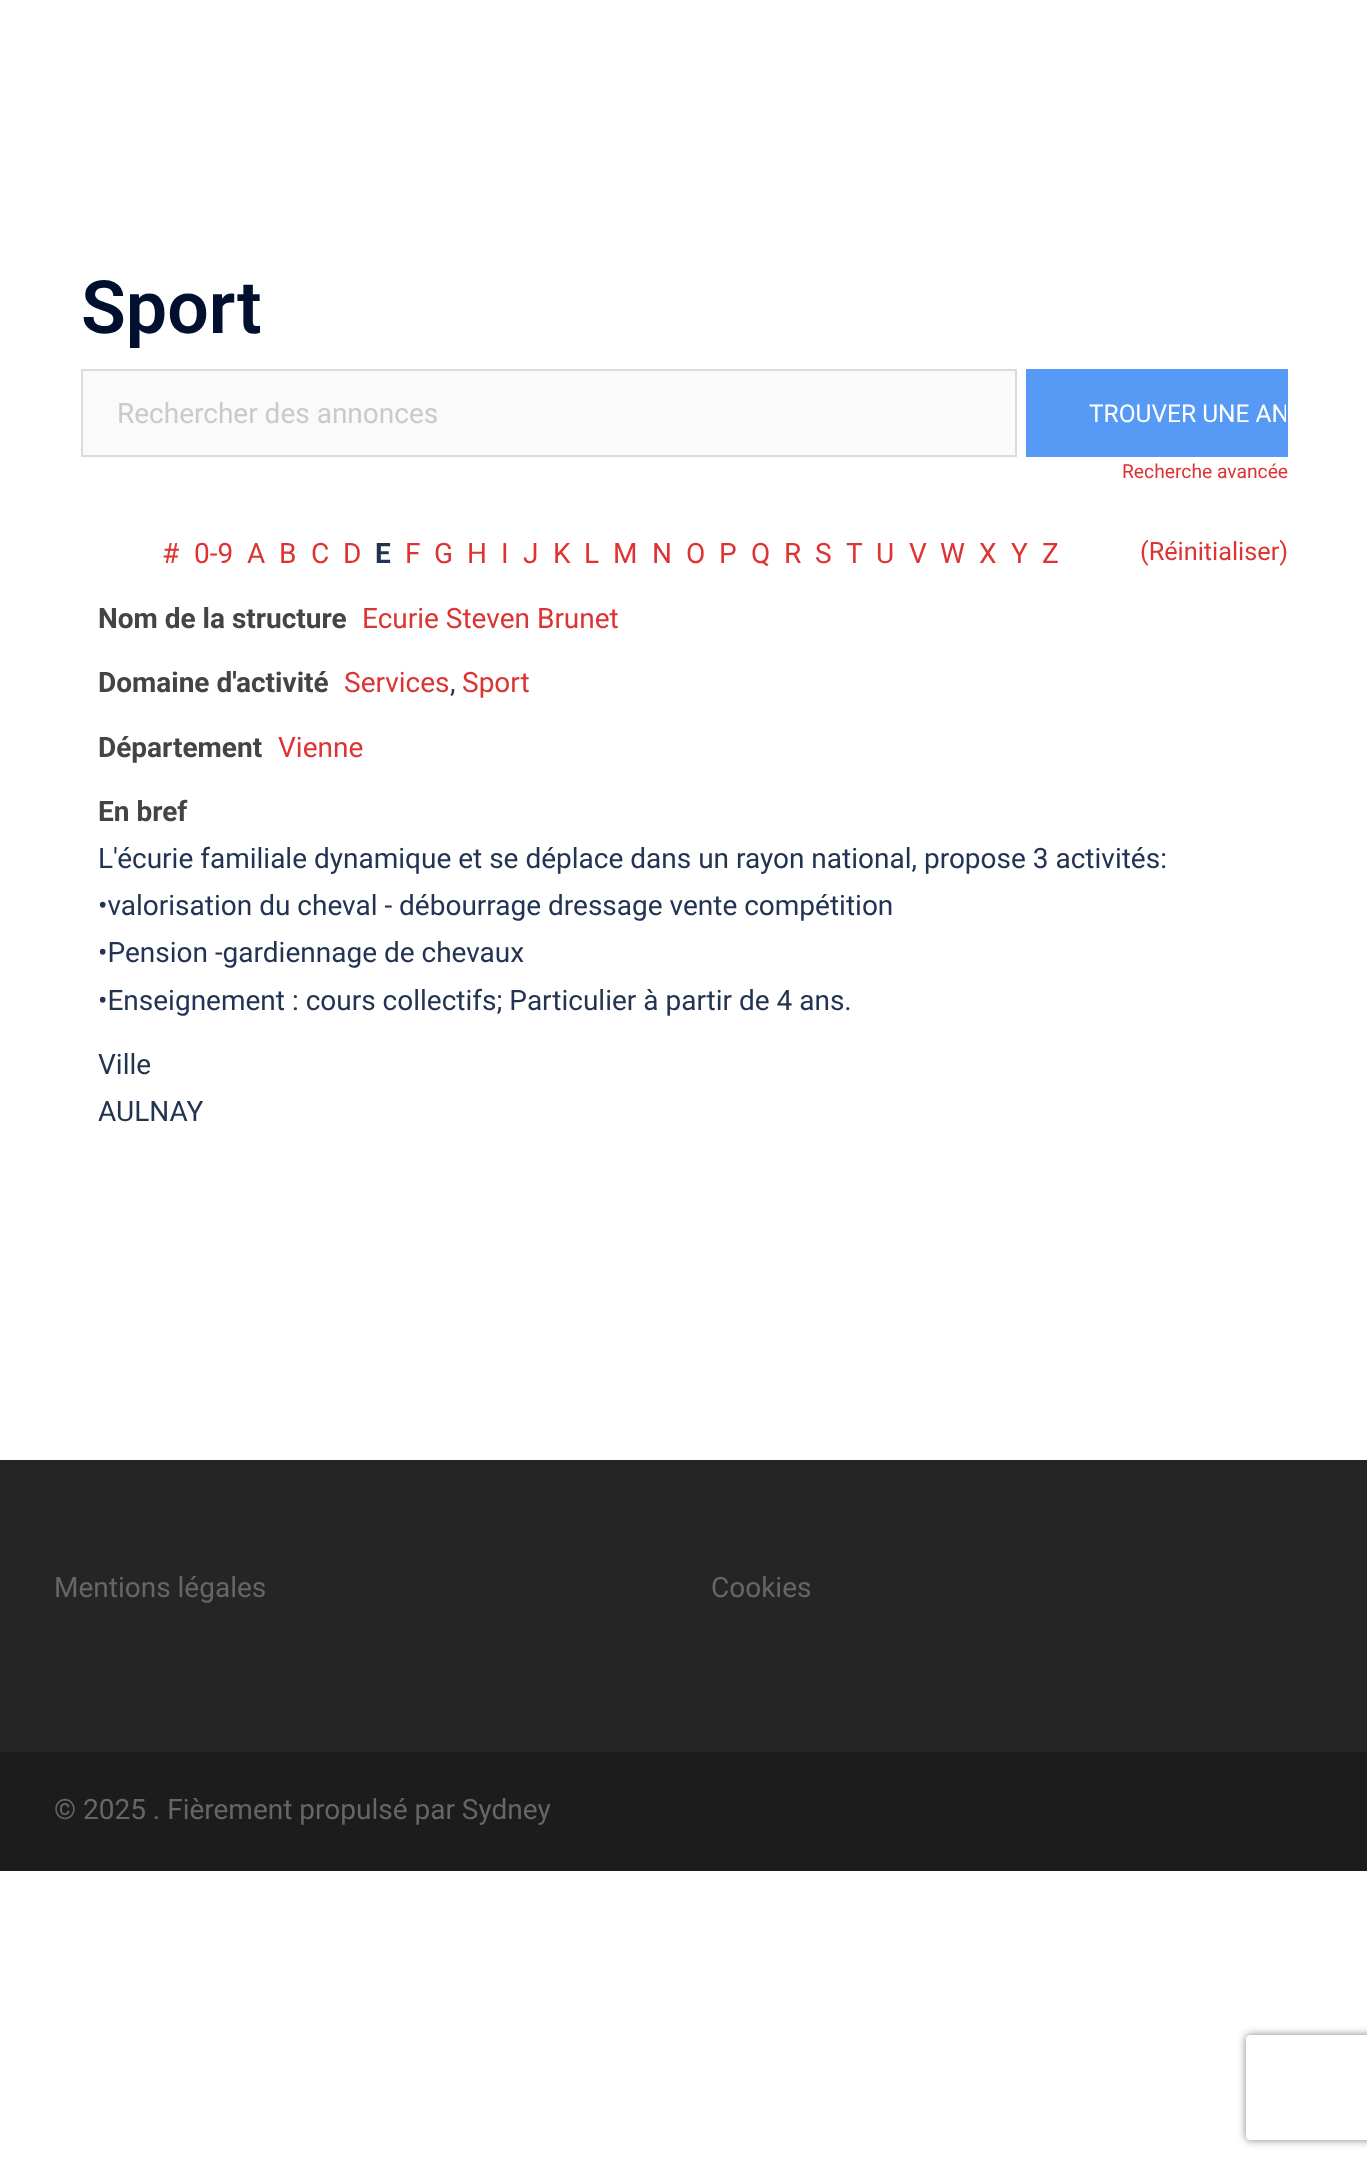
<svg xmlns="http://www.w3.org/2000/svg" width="1367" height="2164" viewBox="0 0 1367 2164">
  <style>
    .t1 { font: 600 73.5px Roboto; fill: #00102e; }
    .t2 { font: 28px Roboto; fill: #cacaca; }
    .t3 { font: 24.5px Roboto; fill: #fff; }
    .t4 { font: 19.25px Roboto; fill: #d33; }
    .t5 { font: 28px Roboto; fill: #d33; }
    .t6 { font: bold 28px Roboto; fill: #233452; }
    .t7 { font: 25.25px Roboto; fill: #d33; }
    .t8 { font: bold 28px Roboto; fill: #444; }
    .t9 { font: 28px Roboto; fill: #233452; }
    .t10 { font: 28px Roboto; fill: #666; }
  </style>
  <defs>
    <clipPath id="clip1"><rect x="1027" y="371" width="259" height="84"/></clipPath>
    <clipPath id="clip2"><path d="M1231 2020H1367V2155H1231ZM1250 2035H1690C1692 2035 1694 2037 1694 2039V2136C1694 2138 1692 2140 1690 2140H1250C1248 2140 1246 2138 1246 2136V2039C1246 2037 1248 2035 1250 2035Z" clip-rule="evenodd"/></clipPath>
  </defs>
  <rect width="100%" height="100%" fill="#fff"/>
  <text x="81" y="333" class="t1">Sport</text>
  <rect x="82" y="370" width="934" height="86" fill="#fafafa" stroke="#dbdbdb" stroke-width="2"/>
  <text x="117" y="423" class="t2">Rechercher des annonces</text>
  <rect x="1026" y="369" width="262" height="88" fill="#569af6"/>
  <g clip-path="url(#clip1)">
    <text x="1089" y="422" class="t3">TROUVER UNE AN</text>
  </g>
  <text x="1122" y="478" class="t4">Recherche avancée</text>
  <text x="162" y="563" class="t5">#</text>
  <text x="194" y="563" class="t5">0-9</text>
  <text x="247" y="563" class="t5">A</text>
  <text x="279" y="563" class="t5">B</text>
  <text x="311" y="563" class="t5">C</text>
  <text x="343" y="563" class="t5">D</text>
  <text x="375" y="563" class="t6">E</text>
  <text x="405" y="563" class="t5">F</text>
  <text x="434" y="563" class="t5">G</text>
  <text x="467" y="563" class="t5">H</text>
  <text x="501" y="563" class="t5">I</text>
  <text x="523" y="563" class="t5">J</text>
  <text x="553" y="563" class="t5">K</text>
  <text x="584" y="563" class="t5">L</text>
  <text x="613" y="563" class="t5">M</text>
  <text x="652" y="563" class="t5">N</text>
  <text x="686" y="563" class="t5">O</text>
  <text x="719" y="563" class="t5">P</text>
  <text x="751" y="563" class="t5">Q</text>
  <text x="784" y="563" class="t5">R</text>
  <text x="815" y="563" class="t5">S</text>
  <text x="846" y="563" class="t5">T</text>
  <text x="876" y="563" class="t5">U</text>
  <text x="909" y="563" class="t5">V</text>
  <text x="940" y="563" class="t5">W</text>
  <text x="979" y="563" class="t5">X</text>
  <text x="1011" y="563" class="t5">Y</text>
  <text x="1042" y="563" class="t5">Z</text>
  <text x="1140" y="560" class="t7">(Réinitialiser)</text>
  <text x="98" y="628" class="t8">Nom de la structure</text>
  <text x="362" y="628" class="t5">Ecurie Steven Brunet</text>
  <text x="98" y="692" class="t8">Domaine d'activité</text>
  <text x="344" y="692" class="t5">Services</text>
  <text x="450" y="692" class="t9">,</text>
  <text x="462" y="692" class="t5">Sport</text>
  <text x="98" y="757" class="t8">Département</text>
  <text x="278" y="757" class="t5">Vienne</text>
  <text x="98" y="821" class="t8">En bref</text>
  <text x="98" y="868" class="t9">L'écurie familiale dynamique et se déplace dans un rayon national, propose 3 activités:</text>
  <text x="98" y="915" class="t9">•valorisation du cheval - débourrage dressage vente compétition</text>
  <text x="98" y="962" class="t9">•Pension -gardiennage de chevaux</text>
  <text x="98" y="1010" class="t9">•Enseignement : cours collectifs; Particulier à partir de 4 ans.</text>
  <text x="98" y="1074" class="t9">Ville</text>
  <text x="98" y="1121" class="t9">AULNAY</text>
  <rect x="0" y="1460" width="1367" height="292" fill="#252525"/>
  <text x="54" y="1597" class="t10">Mentions légales</text>
  <text x="711" y="1597" class="t10">Cookies</text>
  <rect x="0" y="1752" width="1367" height="119" fill="#1c1c1c"/>
  <text x="54" y="1819" class="t10">© 2025 . Fièrement propulsé par Sydney</text>
  <g clip-path="url(#clip2)">
    <rect x="1246" y="2035" width="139" height="105" rx="4" fill="#808080" filter="blur(4.5px)"/>
  </g>
</svg>
